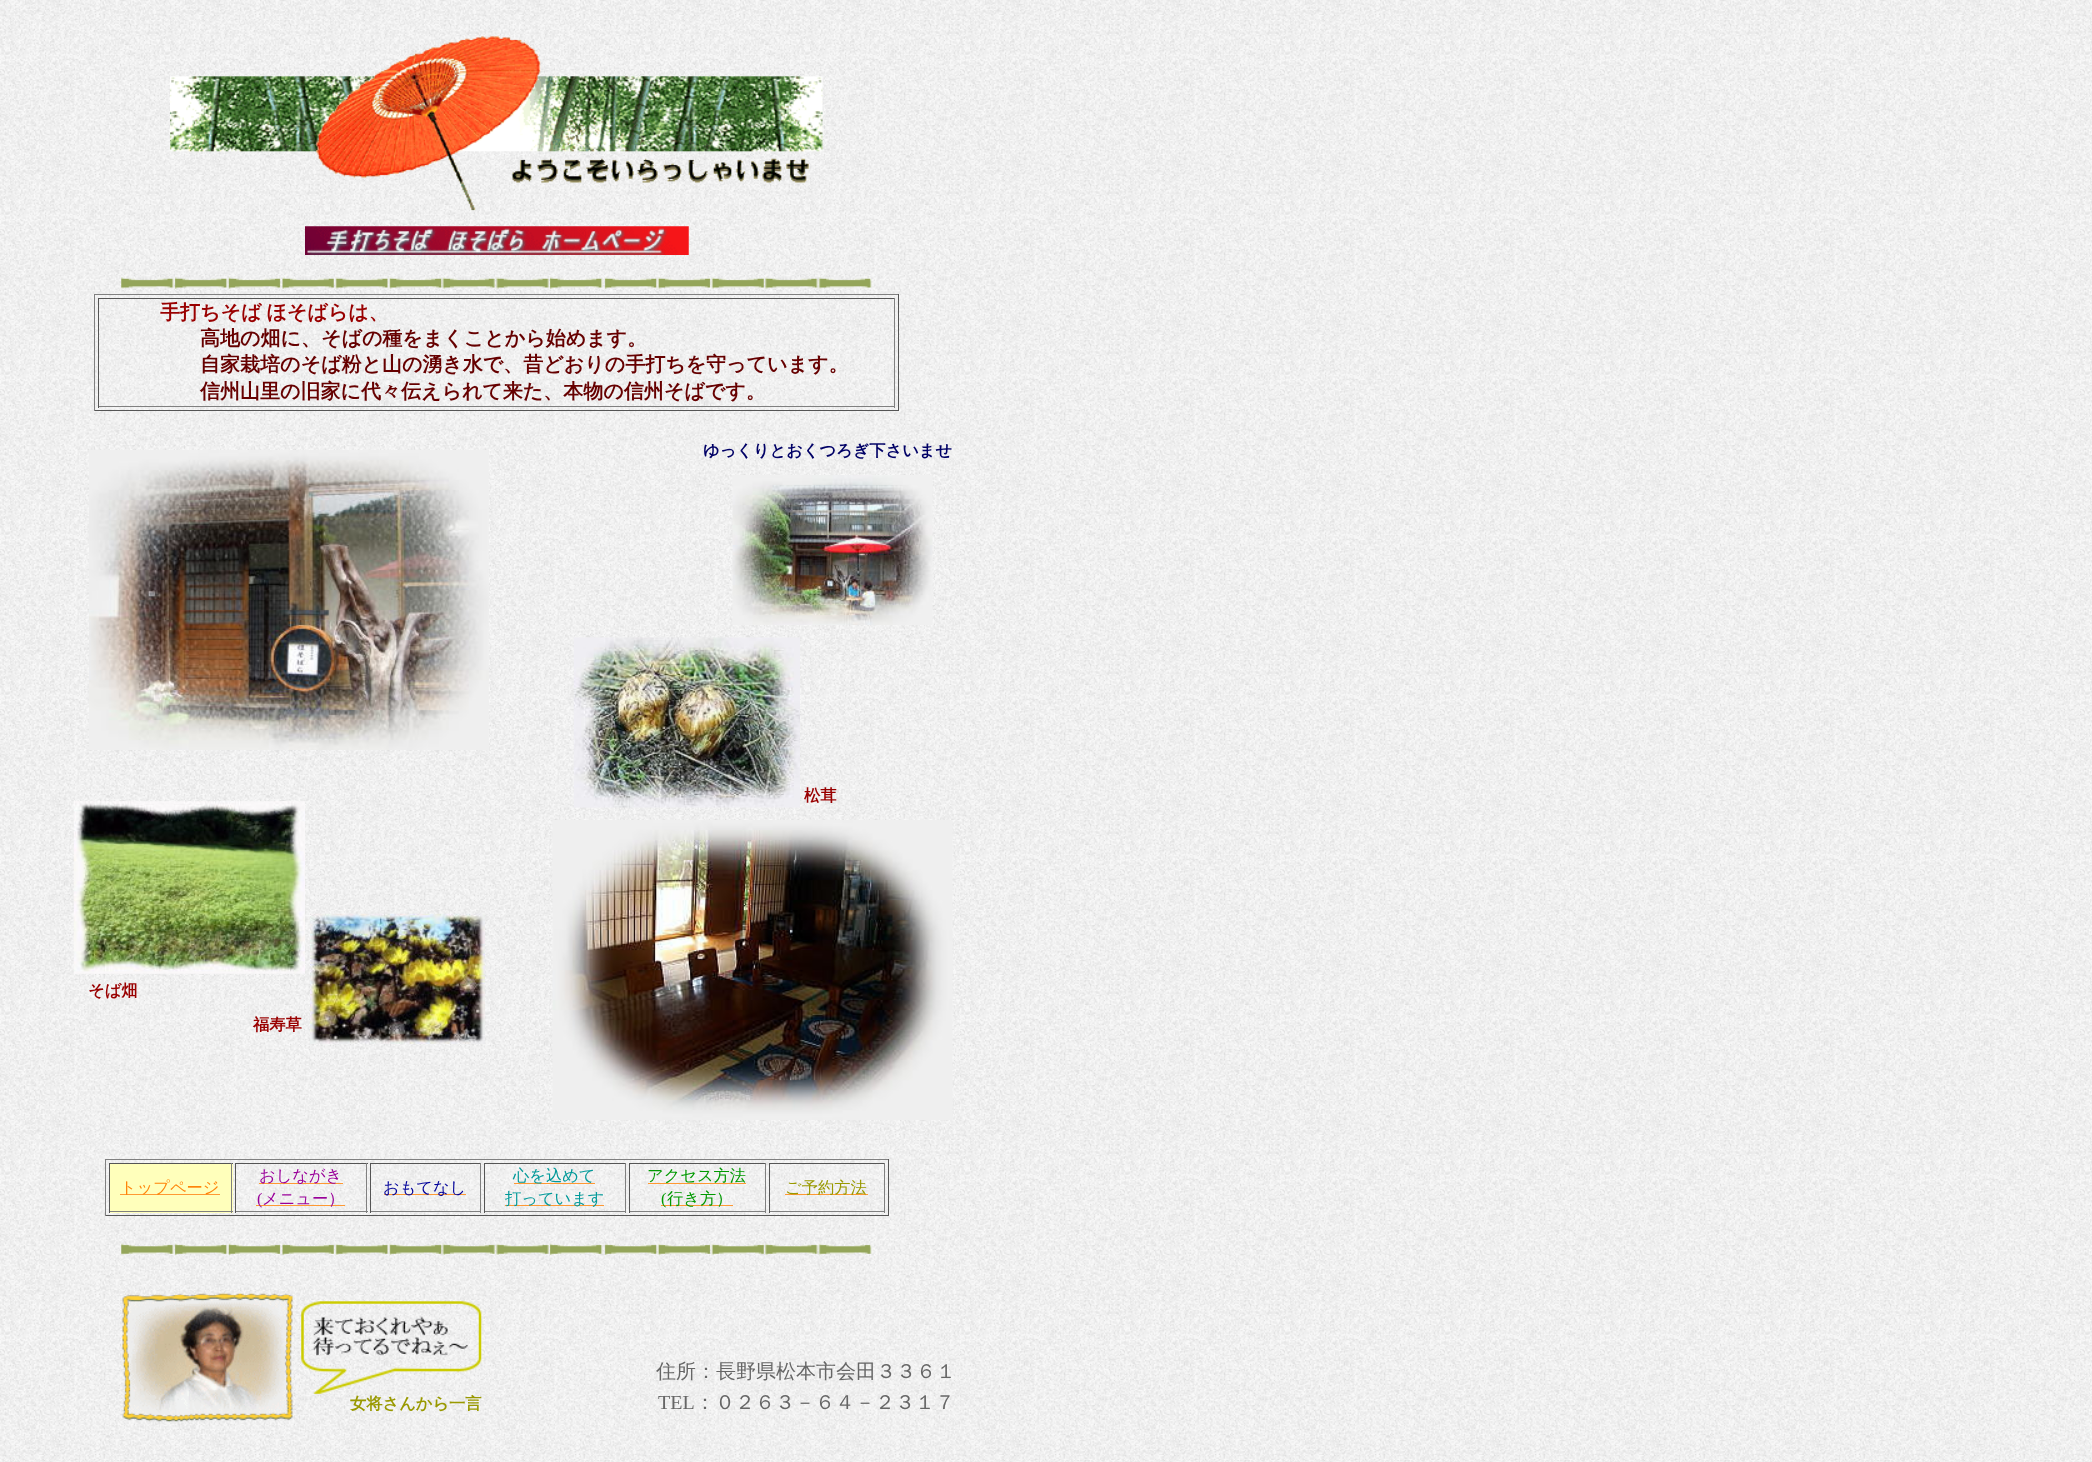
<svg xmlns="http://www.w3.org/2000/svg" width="2092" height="1462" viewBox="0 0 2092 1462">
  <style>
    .t1 { font: bold 20px WenQuanYi Zen Hei; fill: #900; }
    .t2 { font: bold 20px WenQuanYi Zen Hei; fill: #600; }
    .t3 { font: bold 16.25px WenQuanYi Zen Hei; fill: #006; }
    .t4 { font: bold 16.25px WenQuanYi Zen Hei; fill: #900; }
    .t5 { font: 500 16.25px WenQuanYi Zen Hei; fill: #ff8409; }
    .t6 { font: 500 16.25px WenQuanYi Zen Hei; fill: #909; }
    .t7 { font: 16.25px Liberation Serif; fill: #909; }
    .t8 { font: 500 16.25px WenQuanYi Zen Hei; fill: #009; }
    .t9 { font: 500 16.25px WenQuanYi Zen Hei; fill: #099; }
    .t10 { font: 500 16.25px WenQuanYi Zen Hei; fill: #090; }
    .t11 { font: 16.25px Liberation Serif; fill: #090; }
    .t12 { font: 500 16.25px WenQuanYi Zen Hei; fill: #990; }
    .t13 { font: bold 16.25px WenQuanYi Zen Hei; fill: #990; }
    .t14 { font: 500 20px WenQuanYi Zen Hei; fill: #666; }
    .t15 { font: 20px Liberation Serif; fill: #666; }
  </style>
  <rect width="100%" height="100%" fill="#fff"/>
  <image x="0" y="0" width="2092" height="1462" href="images/1.png"/>
  <image x="170" y="36" width="653" height="175" href="images/2.png"/>
  <image x="305" y="226" width="384" height="29" href="images/3.png"/>
  <image x="121" y="277" width="751" height="12" href="images/4.png"/>
  <rect x="94" y="294" width="805" height="1" fill="#808080"/>
  <rect x="898" y="294" width="1" height="117" fill="#555"/>
  <rect x="94" y="410" width="805" height="1" fill="#555"/>
  <rect x="94" y="294" width="1" height="117" fill="#808080"/>
  <rect x="98" y="298" width="797" height="1" fill="#555"/>
  <rect x="894" y="298" width="1" height="110" fill="#808080"/>
  <rect x="98" y="406" width="797" height="1" fill="#808080"/>
  <rect x="98" y="298" width="1" height="110" fill="#555"/>
  <text x="160" y="319" word-spacing="-1" class="t1">手打ちそば ほそばらは、</text>
  <text x="200" y="345" class="t2">高地の畑に、そばの種をまくことから始めます。</text>
  <text x="200" y="371" class="t2">自家栽培のそば粉と山の湧き水で、昔どおりの手打ちを守っています。</text>
  <text x="200" y="398" class="t2">信州山里の旧家に代々伝えられて来た、本物の信州そばです。</text>
  <text x="703" y="456" class="t3">ゆっくりとおくつろぎ下さいませ</text>
  <image x="732" y="475" width="201" height="150" href="images/5.png"/>
  <image x="573" y="637" width="227" height="171" href="images/6.png"/>
  <text x="804" y="801" class="t4">松茸</text>
  <image x="552" y="820" width="401" height="300" href="images/7.png"/>
  <image x="89" y="450" width="400" height="300" href="images/8.png"/>
  <image x="73" y="801" width="232" height="173" href="images/9.png"/>
  <text x="88" y="996" class="t4">そば畑</text>
  <text x="253" y="1030" class="t4">福寿草</text>
  <image x="310" y="913" width="175" height="131" href="images/10.png"/>
  <rect x="105" y="1159" width="784" height="1" fill="#808080"/>
  <rect x="888" y="1159" width="1" height="57" fill="#555"/>
  <rect x="105" y="1215" width="784" height="1" fill="#555"/>
  <rect x="105" y="1159" width="1" height="57" fill="#808080"/>
  <rect x="110" y="1164" width="123" height="49" fill="#ffb"/>
  <rect x="109" y="1163" width="124" height="1" fill="#555"/>
  <rect x="231" y="1163" width="1" height="50" fill="#808080"/>
  <rect x="109" y="1211" width="124" height="1" fill="#808080"/>
  <rect x="109" y="1163" width="1" height="50" fill="#555"/>
  <rect x="120" y="1194" width="100" height="1" fill="#f93"/>
  <text x="120" y="1193" class="t5">トップページ</text>
  <rect x="235" y="1163" width="133" height="1" fill="#555"/>
  <rect x="366" y="1163" width="1" height="50" fill="#808080"/>
  <rect x="235" y="1211" width="133" height="1" fill="#808080"/>
  <rect x="235" y="1163" width="1" height="50" fill="#555"/>
  <rect x="259" y="1183" width="84" height="1" fill="#f93"/>
  <text x="259" y="1181" class="t6">おしながき</text>
  <rect x="256" y="1205" width="89" height="1" fill="#f93"/>
  <text x="257" y="1204" class="t7">(</text>
  <text x="262" y="1204" class="t6">メニュー）</text>
  <rect x="370" y="1163" width="111" height="1" fill="#555"/>
  <rect x="480" y="1163" width="1" height="50" fill="#808080"/>
  <rect x="370" y="1211" width="111" height="1" fill="#808080"/>
  <rect x="370" y="1163" width="1" height="50" fill="#555"/>
  <rect x="384" y="1194" width="82" height="1" fill="#f93"/>
  <text x="383" y="1193" class="t8">おもてなし</text>
  <rect x="484" y="1163" width="142" height="1" fill="#555"/>
  <rect x="625" y="1163" width="1" height="50" fill="#808080"/>
  <rect x="484" y="1211" width="142" height="1" fill="#808080"/>
  <rect x="484" y="1163" width="1" height="50" fill="#555"/>
  <rect x="514" y="1183" width="81" height="1" fill="#f93"/>
  <text x="513" y="1181" class="t9">心を込めて</text>
  <rect x="505" y="1205" width="99" height="1" fill="#f93"/>
  <text x="505" y="1204" class="t9">打っています</text>
  <rect x="629" y="1163" width="137" height="1" fill="#555"/>
  <rect x="765" y="1163" width="1" height="50" fill="#808080"/>
  <rect x="629" y="1211" width="137" height="1" fill="#808080"/>
  <rect x="629" y="1163" width="1" height="50" fill="#555"/>
  <rect x="648" y="1183" width="98" height="1" fill="#f93"/>
  <text x="647" y="1181" class="t10">アクセス方法</text>
  <rect x="661" y="1205" width="72" height="1" fill="#f93"/>
  <text x="661" y="1204" class="t11">(</text>
  <text x="667" y="1204" class="t10">行き方）</text>
  <rect x="769" y="1163" width="116" height="1" fill="#555"/>
  <rect x="884" y="1163" width="1" height="50" fill="#808080"/>
  <rect x="769" y="1211" width="116" height="1" fill="#808080"/>
  <rect x="769" y="1163" width="1" height="50" fill="#555"/>
  <rect x="785" y="1194" width="83" height="1" fill="#f93"/>
  <text x="785" y="1193" class="t12">ご予約方法</text>
  <image x="121" y="1243" width="751" height="12" href="images/11.png"/>
  <image x="122" y="1293" width="171" height="129" href="images/12.png"/>
  <image x="301" y="1301" width="181" height="93" href="images/13.png"/>
  <text x="350" y="1409" class="t13">女将さんから一言</text>
  <text x="656" y="1378" class="t14">住所：長野県松本市会田３３６１</text>
  <text x="658" y="1409" class="t15">TEL</text>
  <text x="695" y="1409" class="t14">：０２６３－６４－２３１７</text>
</svg>
